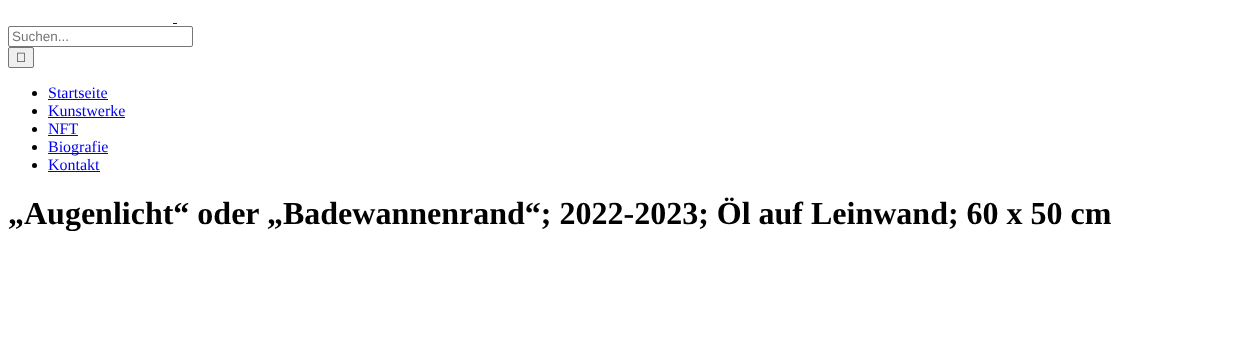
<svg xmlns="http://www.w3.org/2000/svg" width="1259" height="344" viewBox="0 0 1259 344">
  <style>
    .t1 { font: 13.5px Liberation Sans; fill: #757575; }
    .t2 { font: 16px Liberation Serif; fill: #00e; }
    .t3 { font: bold 32px Liberation Serif; fill: #000; }
  </style>
  <rect width="100%" height="100%" fill="#fff"/>
  <rect x="173" y="23" width="4" height="1" fill="#00e"/>
  <rect x="8.5" y="26.5" width="184" height="20" rx="1.5" fill="none" stroke="#767676"/>
  <text x="12" y="41" class="t1">Suchen...</text>
  <rect x="8.5" y="47.5" width="25" height="20" rx="1.5" fill="#efefef" stroke="#767676"/>
  <image x="17" y="52" width="8" height="10" href="images/1.png"/>
  <circle cx="34.5" cy="93.5" r="2.5" fill="#000"/>
  <text x="48" y="98" class="t2">Startseite</text>
  <rect x="48" y="99" width="60" height="1" fill="#00e"/>
  <circle cx="34.5" cy="111.5" r="2.5" fill="#000"/>
  <text x="48" y="116" class="t2">Kunstwerke</text>
  <rect x="48" y="117" width="77" height="1" fill="#00e"/>
  <circle cx="34.5" cy="129.5" r="2.5" fill="#000"/>
  <text x="48" y="134" class="t2">NFT</text>
  <rect x="48" y="135" width="30" height="1" fill="#00e"/>
  <circle cx="34.5" cy="147.5" r="2.5" fill="#000"/>
  <rect x="48" y="153" width="60" height="1" fill="#00e"/>
  <text x="48" y="152" class="t2">Biografie</text>
  <circle cx="34.5" cy="165.5" r="2.5" fill="#000"/>
  <text x="48" y="170" class="t2">Kontakt</text>
  <rect x="48" y="171" width="52" height="1" fill="#00e"/>
  <text x="8" y="224" class="t3">„Augenlicht“ oder „Badewannenrand“; 2022-2023; Öl auf Leinwand; 60 x 50 cm</text>
</svg>
